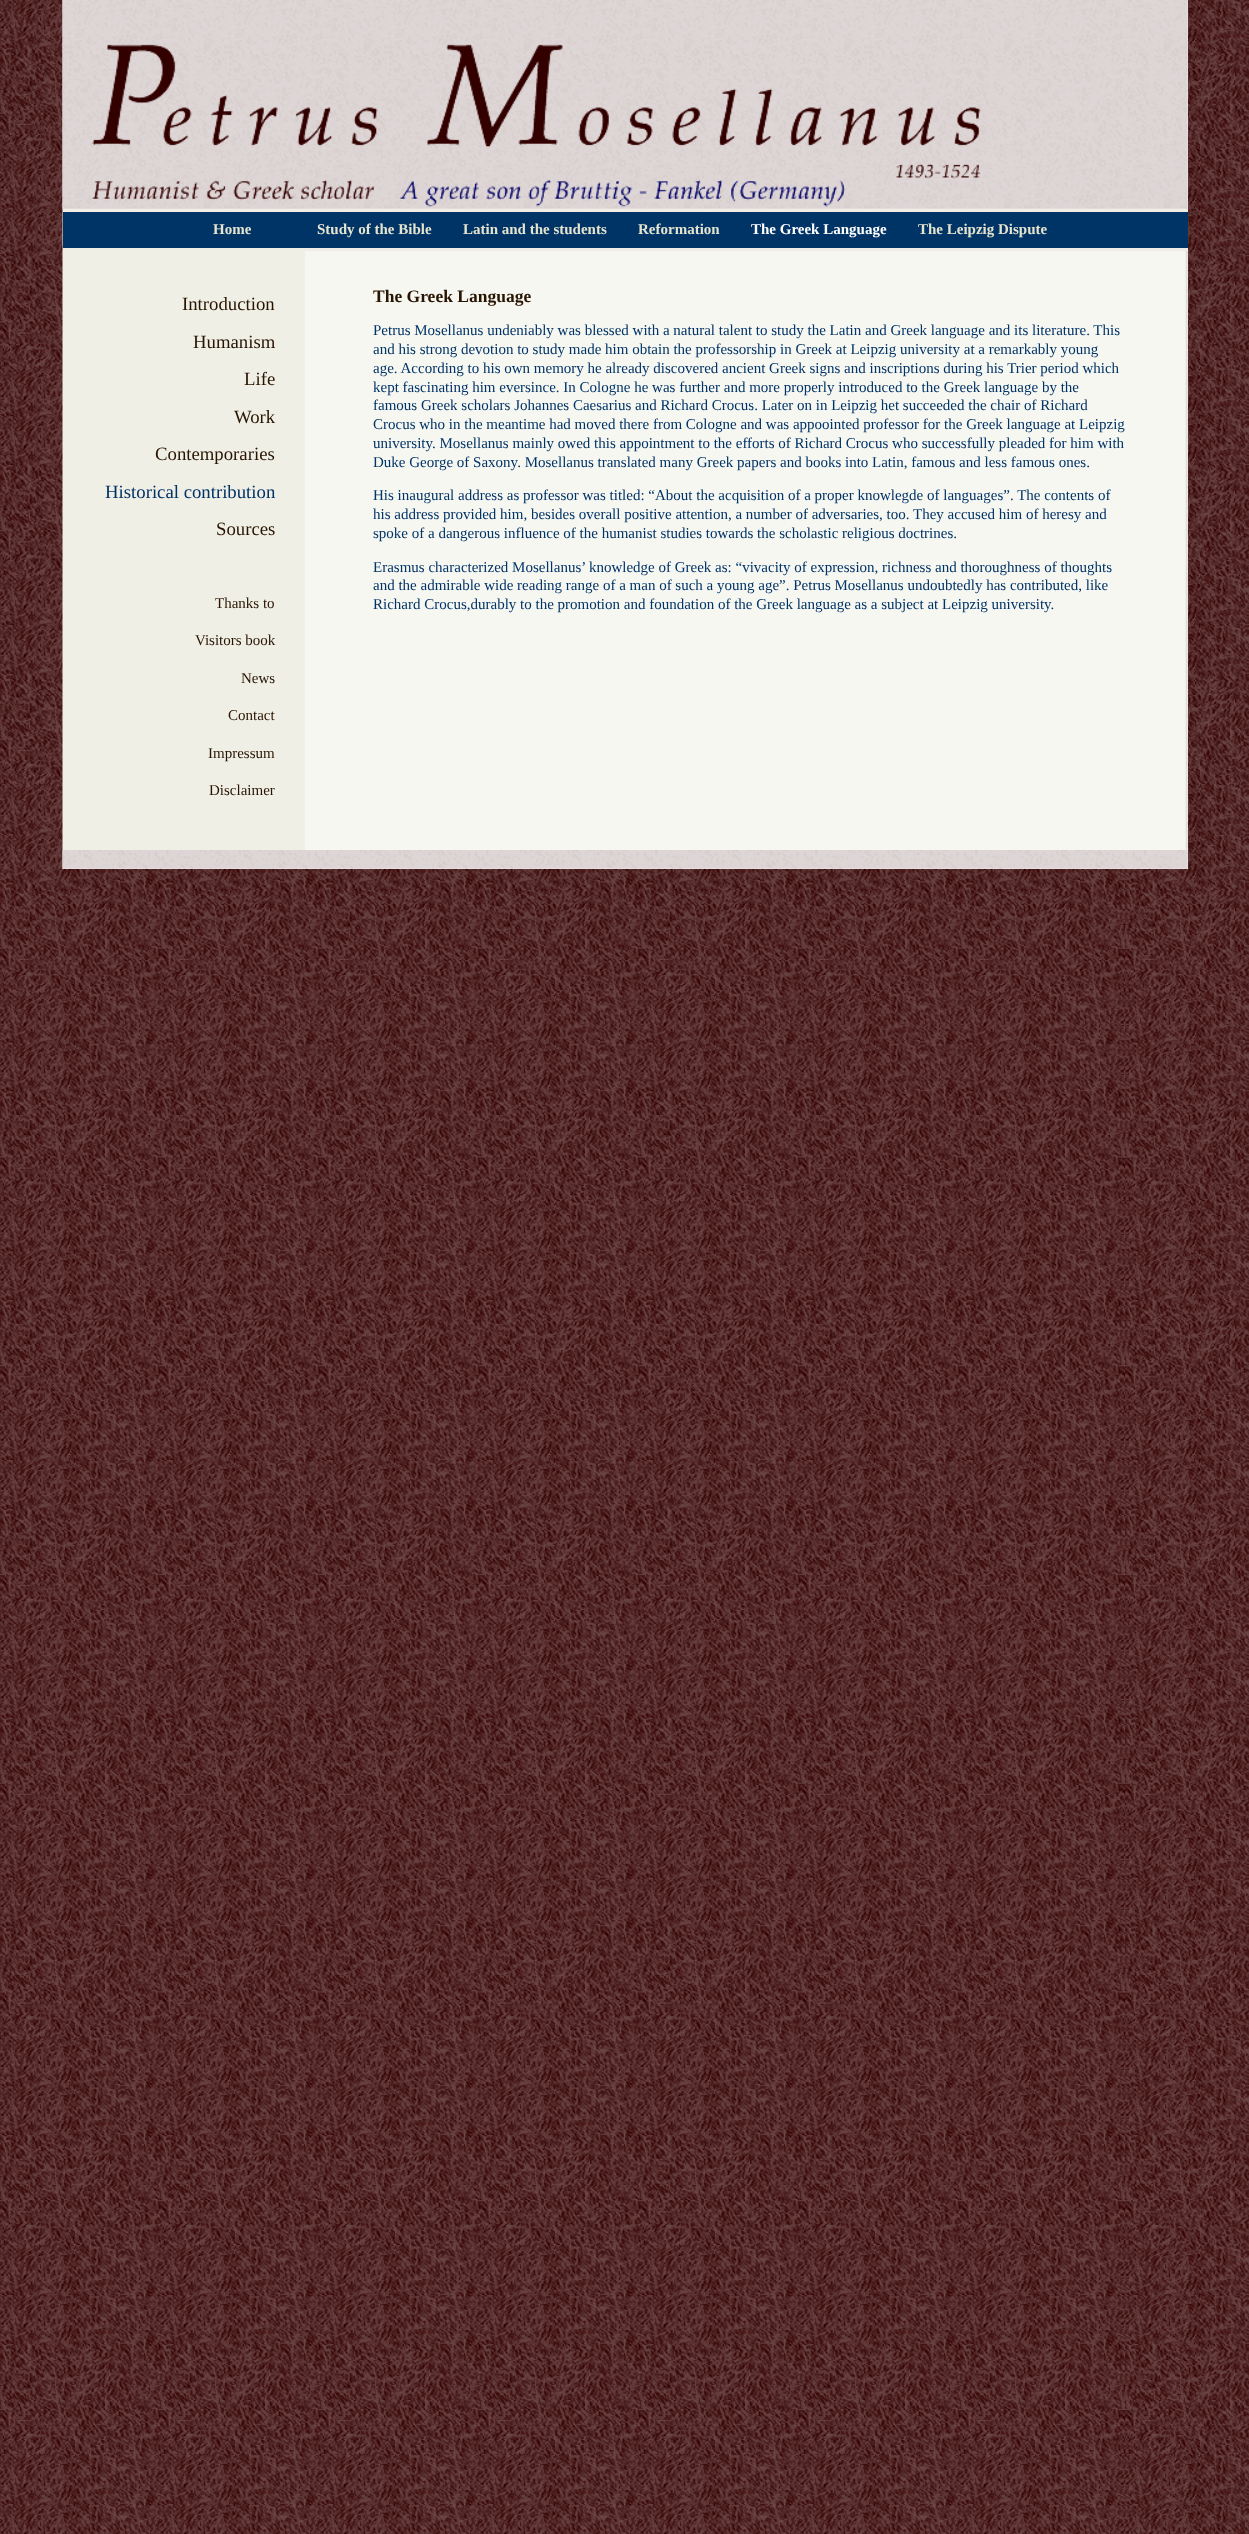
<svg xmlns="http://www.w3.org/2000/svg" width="1249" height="2534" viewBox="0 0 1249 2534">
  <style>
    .t1 { font: bold 15px Liberation Serif; fill: #e4e4cf; }
    .t2 { font: bold 15px Liberation Serif; fill: #fff; }
    .t3 { font: 18.75px Liberation Serif; fill: #281400; }
    .t4 { font: 18.75px Liberation Serif; fill: #036; }
    .t5 { font: 15px Liberation Serif; fill: #281400; }
    .t6 { font: bold 17.5px Liberation Serif; fill: #281400; }
    .t7 { font: 15px Liberation Serif; fill: #036; }
  </style>
  <rect width="100%" height="100%" fill="#fff"/>
  <image x="0" y="0" width="1249" height="2534" href="images/1.png"/>
  <rect x="63" y="0" width="1125" height="869" fill="#f7f7f2"/>
  <image x="62" y="0" width="1126" height="869" href="images/2.png"/>
  <image x="62" y="0" width="1126" height="209" href="images/3.png"/>
  <rect x="63" y="212" width="1125" height="36" fill="#036"/>
  <rect x="304" y="209" width="884" height="3" fill="#efede5"/>
  <rect x="304" y="248" width="884" height="3" fill="#efede5"/>
  <text x="213" y="234" class="t1">Home</text>
  <text x="317" y="234" class="t1">Study of the Bible</text>
  <text x="463" y="234" class="t1">Latin and the students</text>
  <text x="638" y="234" class="t1">Reformation</text>
  <text x="751" y="234" class="t2">The Greek Language</text>
  <text x="918" y="234" class="t1">The Leipzig Dispute</text>
  <text x="182" y="310" class="t3">Introduction</text>
  <text x="193" y="348" class="t3">Humanism</text>
  <text x="244" y="385" class="t3">Life</text>
  <text x="234" y="423" class="t3">Work</text>
  <text x="155" y="460" class="t3">Contemporaries</text>
  <text x="105" y="498" class="t4">Historical contribution</text>
  <text x="216" y="535" class="t3">Sources</text>
  <text x="215" y="608" class="t5">Thanks to</text>
  <text x="195" y="645" class="t5">Visitors book</text>
  <text x="241" y="683" class="t5">News</text>
  <text x="228" y="720" class="t5">Contact</text>
  <text x="208" y="758" class="t5">Impressum</text>
  <text x="209" y="795" class="t5">Disclaimer</text>
  <text x="373" y="302" class="t6">The Greek Language</text>
  <text x="373" y="335" class="t7">Petrus Mosellanus undeniably was blessed with a natural talent to study the Latin and Greek language and its literature. This</text>
  <text x="373" y="354" class="t7">and his strong devotion to study made him obtain the professorship in Greek at Leipzig university at a remarkably young</text>
  <text x="373" y="373" class="t7">age. According to his own memory he already discovered ancient Greek signs and inscriptions during his Trier period which</text>
  <text x="373" y="392" class="t7">kept fascinating him eversince. In Cologne he was further and more properly introduced to the Greek language by the</text>
  <text x="373" y="410" class="t7">famous Greek scholars Johannes Caesarius and Richard Crocus. Later on in Leipzig het succeeded the chair of Richard</text>
  <text x="373" y="429" class="t7">Crocus who in the meantime had moved there from Cologne and was appoointed professor for the Greek language at Leipzig</text>
  <text x="373" y="448" class="t7">university. Mosellanus mainly owed this appointment to the efforts of Richard Crocus who successfully pleaded for him with</text>
  <text x="373" y="467" class="t7">Duke George of Saxony. Mosellanus translated many Greek papers and books into Latin, famous and less famous ones.</text>
  <text x="373" y="500" class="t7">His inaugural address as professor was titled: “About the acquisition of a proper knowlegde of languages”. The contents of</text>
  <text x="373" y="519" class="t7">his address provided him, besides overall positive attention, a number of adversaries, too. They accused him of heresy and</text>
  <text x="373" y="538" class="t7">spoke of a dangerous influence of the humanist studies towards the scholastic religious doctrines.</text>
  <text x="373" y="572" class="t7">Erasmus characterized Mosellanus’ knowledge of Greek as: “vivacity of expression, richness and thoroughness of thoughts</text>
  <text x="373" y="590" class="t7">and the admirable wide reading range of a man of such a young age”. Petrus Mosellanus undoubtedly has contributed, like</text>
  <text x="373" y="609" class="t7">Richard Crocus,durably to the promotion and foundation of the Greek language as a subject at Leipzig university.</text>
  <image x="62" y="850" width="1126" height="19" href="images/4.png"/>
</svg>
